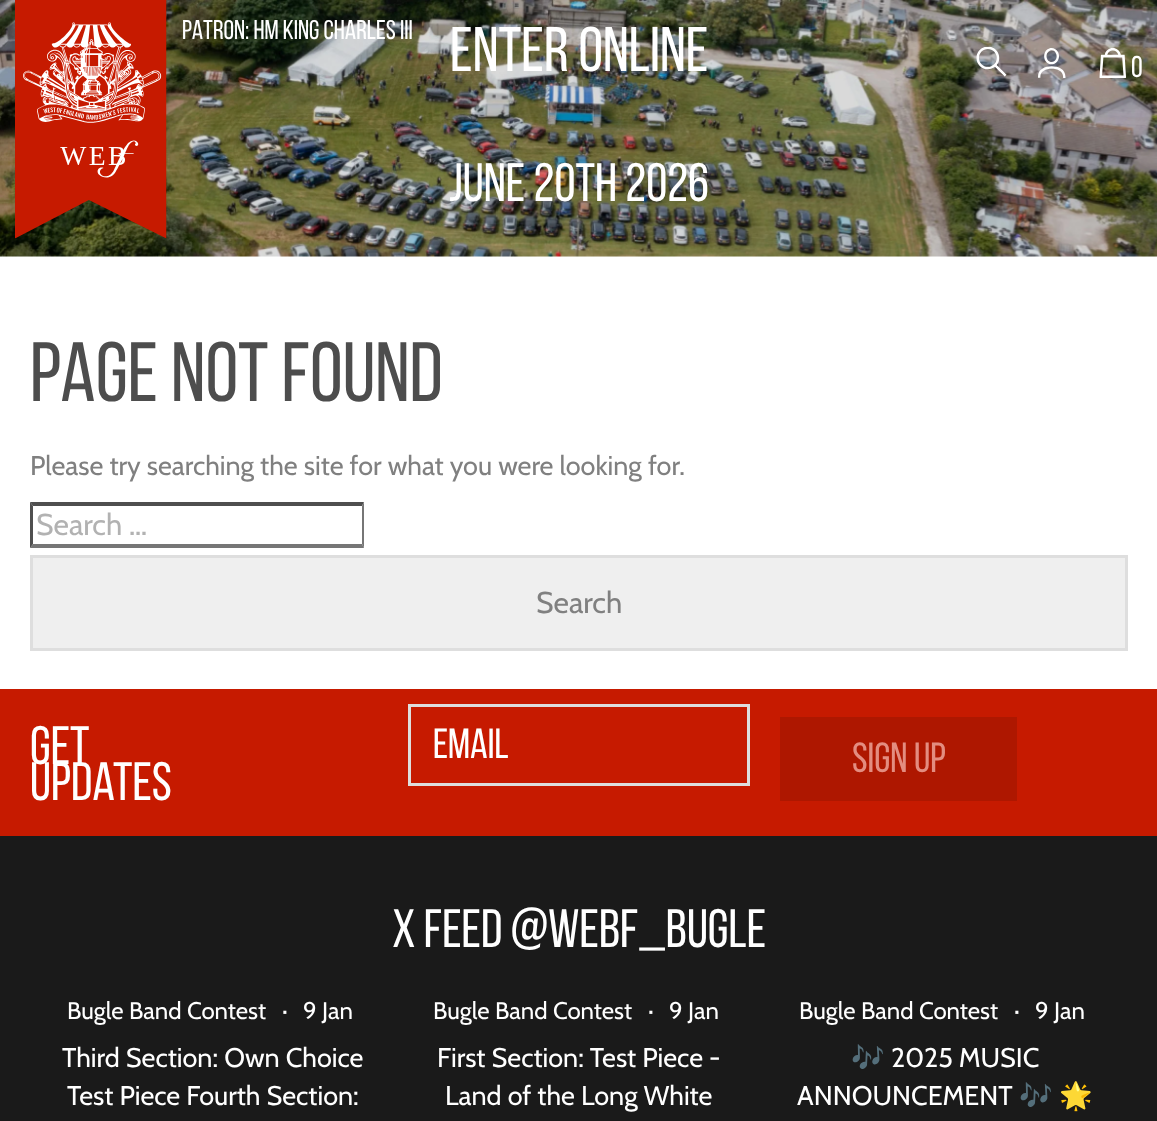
<svg xmlns="http://www.w3.org/2000/svg" width="1157" height="1121" viewBox="0 0 1157 1121">
  <style>
    .t1 { font: 27px Bebas Neue; fill: #fff; }
    .t2 { font: 30px Bebas Neue; fill: #fff; }
    .t3 { font: 63px Bebas Neue; fill: #fff; }
    .t4 { font: 54px Bebas Neue; fill: #fff; }
    .t5 { font: 84px Bebas Neue; fill: #4d4d4d; }
    .t6 { font: 27px Cabin; fill: #808080; }
    .t7 { font: 30px Cabin; fill: #b2b2b2; }
    .t8 { font: 30px Cabin; fill: #808080; }
    .t9 { font: 42px Bebas Neue; fill: #fff; }
    .t10 { font: 42px Bebas Neue; fill: #e38d80; }
    .t11 { font: 24px Cabin; fill: #fff; }
    .t12 { font: 27px Cabin; fill: #fff; }
    .t13 { font: 27px Noto Color Emoji; fill: #fff; }
  </style>
  <rect width="100%" height="100%" fill="#fff"/>
  <image x="0" y="0" width="1157" height="257" href="images/5.png"/>
  <image x="15" y="0" width="152" height="239" href="images/1.png"/>
  <text x="182" y="39" class="t1">PATRON: HM KING CHARLES III</text>
  <image x="976" y="47" width="31" height="30" href="images/2.png"/>
  <image x="1038" y="48" width="28" height="30" href="images/3.png"/>
  <image x="1099" y="48" width="27" height="30" href="images/4.png"/>
  <text x="1131" y="77" class="t2">0</text>
  <text x="450" y="71" class="t3">ENTER ONLINE</text>
  <text x="449" y="201" class="t4">JUNE 20TH 2026</text>
  <text x="30" y="401" class="t5">PAGE NOT FOUND</text>
  <text x="30" y="475" class="t6">Please try searching the site for what you were looking for.</text>
  <path d="M30 502H364L362 506H33Z" fill="#4f4f4f"/>
  <path d="M364 502V548L362 544V506Z" fill="#767676"/>
  <path d="M364 548H30L33 544H362Z" fill="#767676"/>
  <path d="M30 548V502L33 506V544Z" fill="#4f4f4f"/>
  <text x="36" y="535" class="t7">Search …</text>
  <rect x="31.5" y="556.5" width="1095" height="93" fill="#efefef" stroke="#dedede" stroke-width="3"/>
  <text x="536" y="613" class="t8">Search</text>
  <rect x="0" y="689" width="1157" height="147" fill="#c61a00"/>
  <text x="30" y="764" class="t4">Get</text>
  <text x="30" y="800" class="t4">Updates</text>
  <rect x="409.5" y="705.5" width="339" height="79" fill="none" stroke="#dedede" stroke-width="3"/>
  <text x="433" y="758" class="t9">Email</text>
  <rect x="780" y="717" width="237" height="84" fill="#ae1700"/>
  <text x="852" y="772" class="t10">SIGN UP</text>
  <rect x="0" y="836" width="1157" height="285" fill="#1a1a1a"/>
  <text x="392" y="947" class="t4">X FEED @WEBF_BUGLE</text>
  <text x="67" y="1019" class="t11">Bugle Band Contest</text>
  <text x="282" y="1019" class="t11">·</text>
  <text x="303" y="1019" class="t11">9 Jan</text>
  <text x="62" y="1067" class="t12">Third Section: Own Choice</text>
  <text x="67" y="1105" class="t12">Test Piece Fourth Section:</text>
  <text x="433" y="1019" class="t11">Bugle Band Contest</text>
  <text x="648" y="1019" class="t11">·</text>
  <text x="669" y="1019" class="t11">9 Jan</text>
  <text x="437" y="1067" class="t12">First Section: Test Piece -</text>
  <text x="445" y="1105" class="t12">Land of the Long White</text>
  <text x="799" y="1019" class="t11">Bugle Band Contest</text>
  <text x="1014" y="1019" class="t11">·</text>
  <text x="1035" y="1019" class="t11">9 Jan</text>
  <text x="851" y="1067" class="t13">🎶</text>
  <text x="891" y="1067" class="t12">2025 MUSIC</text>
  <text x="797" y="1105" class="t12">ANNOUNCEMENT</text>
  <text x="1019" y="1105" class="t13">🎶</text>
  <text x="1059" y="1105" class="t13">🌟</text>
</svg>
